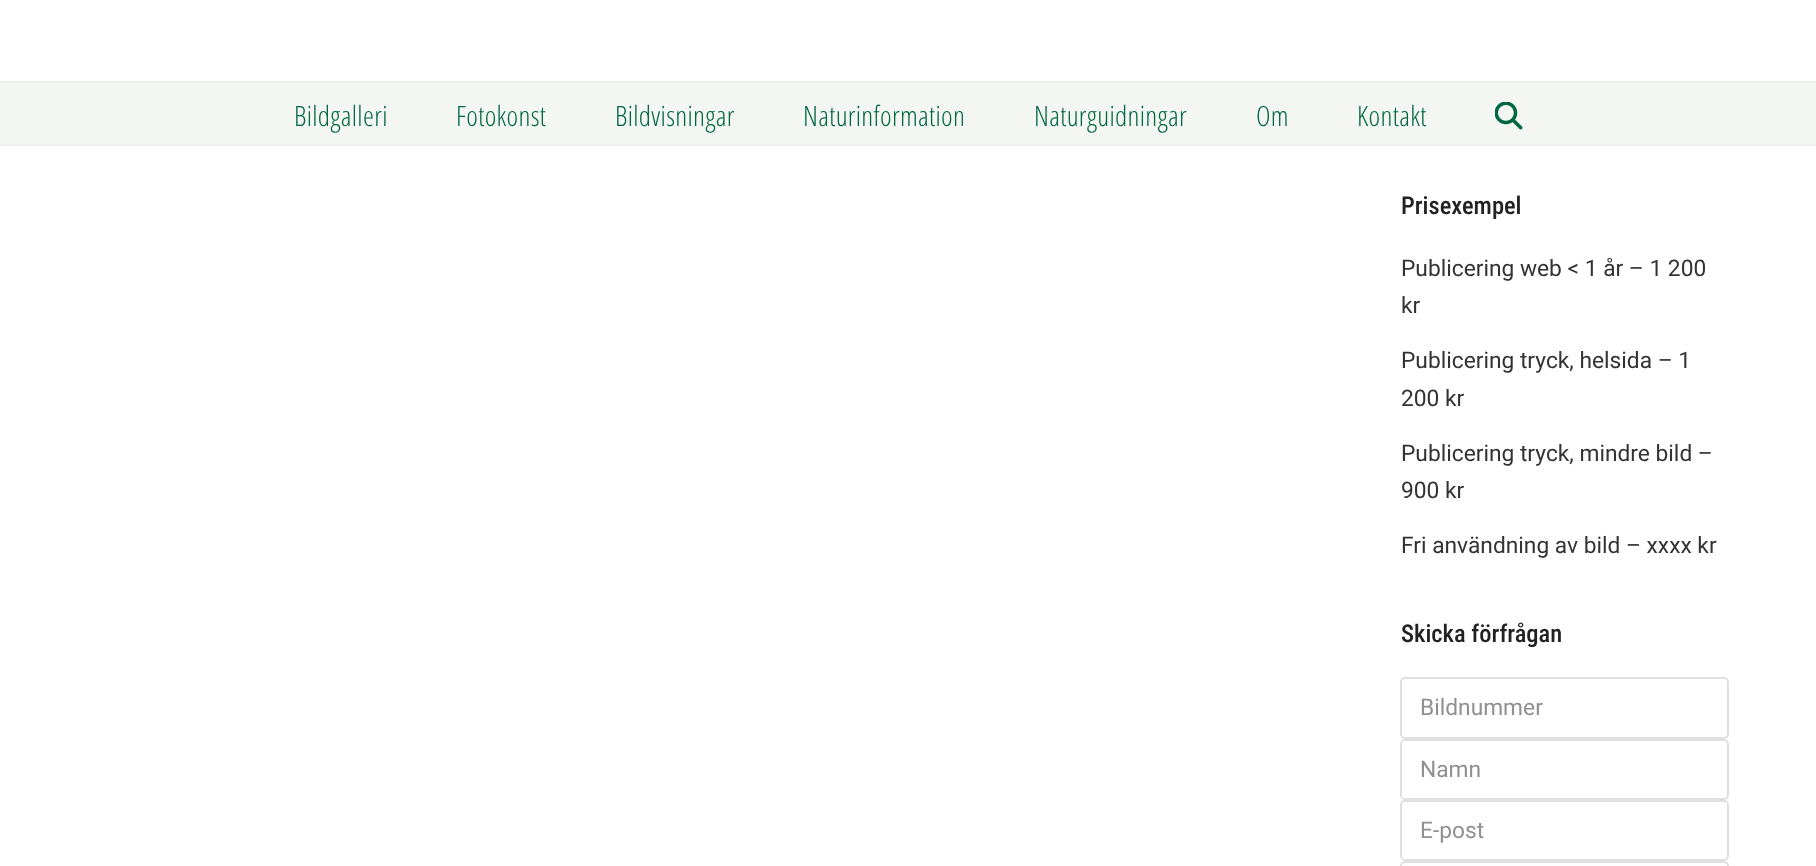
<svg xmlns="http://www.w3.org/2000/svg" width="1816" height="866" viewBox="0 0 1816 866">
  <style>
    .t1 { font: 300 28px Open Sans Condensed; letter-spacing: 0.3px; fill: #006741; }
    .t2 { font: 500 24.5px Roboto Condensed; fill: #222; }
    .t3 { font: 22.75px Roboto; fill: #333; }
    .t4 { font: 22.75px Roboto; fill: #909090; }
  </style>
  <rect width="100%" height="100%" fill="#fff"/>
  <rect x="0" y="83" width="1816" height="61" fill="#f3f6f2"/>
  <rect x="0" y="81" width="1816" height="2" fill="#eee"/>
  <rect x="0" y="144" width="1816" height="2" fill="#eee"/>
  <text x="294" y="126" class="t1">Bildgalleri</text>
  <text x="456" y="126" class="t1">Fotokonst</text>
  <text x="615" y="126" class="t1">Bildvisningar</text>
  <text x="803" y="126" class="t1">Naturinformation</text>
  <text x="1034" y="126" class="t1">Naturguidningar</text>
  <text x="1256" y="126" class="t1">Om</text>
  <text x="1357" y="126" class="t1">Kontakt</text>
  <image x="1495" y="102" width="28" height="28" href="images/1.png"/>
  <text x="1401" y="214" class="t2">Prisexempel</text>
  <text x="1401" y="276" class="t3">Publicering web &lt; 1 år – 1 200</text>
  <text x="1401" y="313" class="t3">kr</text>
  <text x="1401" y="368" class="t3">Publicering tryck, helsida – 1</text>
  <text x="1401" y="406" class="t3">200 kr</text>
  <text x="1401" y="461" class="t3">Publicering tryck, mindre bild –</text>
  <text x="1401" y="498" class="t3">900 kr</text>
  <text x="1401" y="553" class="t3">Fri användning av bild – xxxx kr</text>
  <text x="1401" y="642" class="t2">Skicka förfrågan</text>
  <rect x="1401" y="678" width="327" height="60" rx="4" fill="none" stroke="#e0e0e0" stroke-width="2"/>
  <text x="1420" y="715" class="t4">Bildnummer</text>
  <rect x="1401" y="740" width="327" height="59" rx="4" fill="none" stroke="#e0e0e0" stroke-width="2"/>
  <text x="1420" y="777" class="t4">Namn</text>
  <rect x="1401" y="801" width="327" height="59" rx="4" fill="none" stroke="#e0e0e0" stroke-width="2"/>
  <text x="1420" y="838" class="t4">E-post</text>
  <rect x="1401" y="862" width="327" height="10" rx="4" fill="none" stroke="#e0e0e0" stroke-width="2"/>
</svg>
